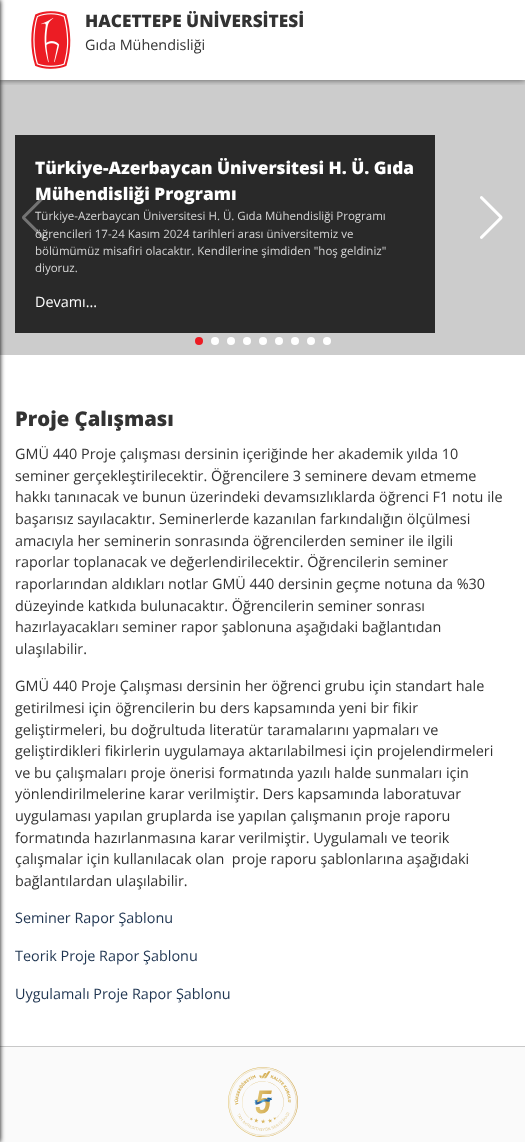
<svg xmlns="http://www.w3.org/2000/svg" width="525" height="1142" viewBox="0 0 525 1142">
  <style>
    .t1 { font: 800 17.25px Open Sans; fill: #333; }
    .t2 { font: 14.4px Open Sans; fill: #333; }
    .t3 { font: 800 17.25px Open Sans; fill: #fff; }
    .t4 { font: 11.5px Open Sans; fill: #d4d4d4; }
    .t5 { font: 14.4px Open Sans; fill: #fff; }
    .t6 { font: 800 20.25px Open Sans; fill: #333; }
    .t7 { font: 14.4px Open Sans; fill: #1f3551; }
  </style>
  <defs>
    <clipPath id="clip1"><rect x="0" y="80" width="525" height="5"/></clipPath>
  </defs>
  <rect width="100%" height="100%" fill="#fff"/>
  <rect x="0" y="80" width="525" height="275" fill="#ccc"/>
  <rect x="0" y="1047" width="525" height="95" fill="#fafafa"/>
  <rect x="0" y="1046" width="525" height="1" fill="#c8c8c8"/>
  <rect x="-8" y="0" width="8" height="1142" fill="#000" filter="blur(2.5px)"/>
  <g clip-path="url(#clip1)">
    <rect x="0" y="0" width="525" height="80" fill="#00000099" filter="blur(3px)"/>
  </g>
  <image x="31" y="11" width="40" height="58" href="images/1.png"/>
  <text x="85" y="27" class="t1">HACETTEPE ÜNİVERSİTESİ</text>
  <text x="85" y="50" class="t2">Gıda Mühendisliği</text>
  <rect x="15" y="135" width="420" height="198" fill="#292929"/>
  <text x="35" y="200" class="t3">Mühendisliği Programı</text>
  <text x="35" y="220" class="t4">Türkiye-Azerbaycan Üniversitesi H. Ü. Gıda Mühendisliği Programı</text>
  <text x="35" y="238" class="t4">öğrencileri 17-24 Kasım 2024 tarihleri arası üniversitemiz ve</text>
  <image x="22" y="196" width="23" height="43" href="images/2.png"/>
  <text x="35" y="174" class="t3">Türkiye-Azerbaycan Üniversitesi H. Ü. Gıda</text>
  <text x="35" y="255" class="t4">bölümümüz misafiri olacaktır. Kendilerine şimdiden "hoş geldiniz"</text>
  <text x="35" y="272" class="t4">diyoruz.</text>
  <text x="35" y="307" class="t5">Devamı...</text>
  <image x="480" y="196" width="23" height="43" href="images/3.png"/>
  <circle cx="199" cy="341" r="4" fill="#ec1b23"/>
  <circle cx="215" cy="341" r="4" fill="#fff"/>
  <circle cx="231" cy="341" r="4" fill="#fff"/>
  <circle cx="247" cy="341" r="4" fill="#fff"/>
  <circle cx="263" cy="341" r="4" fill="#fff"/>
  <circle cx="279" cy="341" r="4" fill="#fff"/>
  <circle cx="295" cy="341" r="4" fill="#fff"/>
  <circle cx="311" cy="341" r="4" fill="#fff"/>
  <circle cx="327" cy="341" r="4" fill="#fff"/>
  <text x="15" y="426" class="t6">Proje Çalışması</text>
  <text x="15" y="459" class="t2">GMÜ 440 Proje çalışması dersinin içeriğinde her akademik yılda 10</text>
  <text x="15" y="481" class="t2">seminer gerçekleştirilecektir. Öğrencilere 3 seminere devam etmeme</text>
  <text x="15" y="502" class="t2">hakkı tanınacak ve bunun üzerindeki devamsızlıklarda öğrenci F1 notu ile</text>
  <text x="15" y="524" class="t2">başarısız sayılacaktır. Seminerlerde kazanılan farkındalığın ölçülmesi</text>
  <text x="15" y="546" class="t2">amacıyla her seminerin sonrasında öğrencilerden seminer ile ilgili</text>
  <text x="15" y="567" class="t2">raporlar toplanacak ve değerlendirilecektir. Öğrencilerin seminer</text>
  <text x="15" y="589" class="t2">raporlarından aldıkları notlar GMÜ 440 dersinin geçme notuna da %30</text>
  <text x="15" y="611" class="t2">düzeyinde katkıda bulunacaktır. Öğrencilerin seminer sonrası</text>
  <text x="15" y="632" class="t2">hazırlayacakları seminer rapor şablonuna aşağıdaki bağlantıdan</text>
  <text x="15" y="654" class="t2">ulaşılabilir.</text>
  <text x="15" y="691" class="t2">GMÜ 440 Proje Çalışması dersinin her öğrenci grubu için standart hale</text>
  <text x="15" y="713" class="t2">getirilmesi için öğrencilerin bu ders kapsamında yeni bir fikir</text>
  <text x="15" y="735" class="t2">geliştirmeleri, bu doğrultuda literatür taramalarını yapmaları ve</text>
  <text x="15" y="756" class="t2">geliştirdikleri fikirlerin uygulamaya aktarılabilmesi için projelendirmeleri</text>
  <text x="15" y="778" class="t2">ve bu çalışmaları proje önerisi formatında yazılı halde sunmaları için</text>
  <text x="15" y="799" class="t2">yönlendirilmelerine karar verilmiştir. Ders kapsamında laboratuvar</text>
  <text x="15" y="821" class="t2">uygulaması yapılan gruplarda ise yapılan çalışmanın proje raporu</text>
  <text x="15" y="843" class="t2">formatında hazırlanmasına karar verilmiştir. Uygulamalı ve teorik</text>
  <text x="15" y="864" class="t2" xml:space="preserve">çalışmalar için kullanılacak olan  proje raporu şablonlarına aşağıdaki</text>
  <text x="15" y="886" class="t2">bağlantılardan ulaşılabilir.</text>
  <text x="15" y="923" class="t7">Seminer Rapor Şablonu</text>
  <text x="15" y="961" class="t7">Teorik Proje Rapor Şablonu</text>
  <text x="15" y="999" class="t7">Uygulamalı Proje Rapor Şablonu</text>
  <image x="228" y="1067" width="70" height="70" href="images/4.png"/>
</svg>
